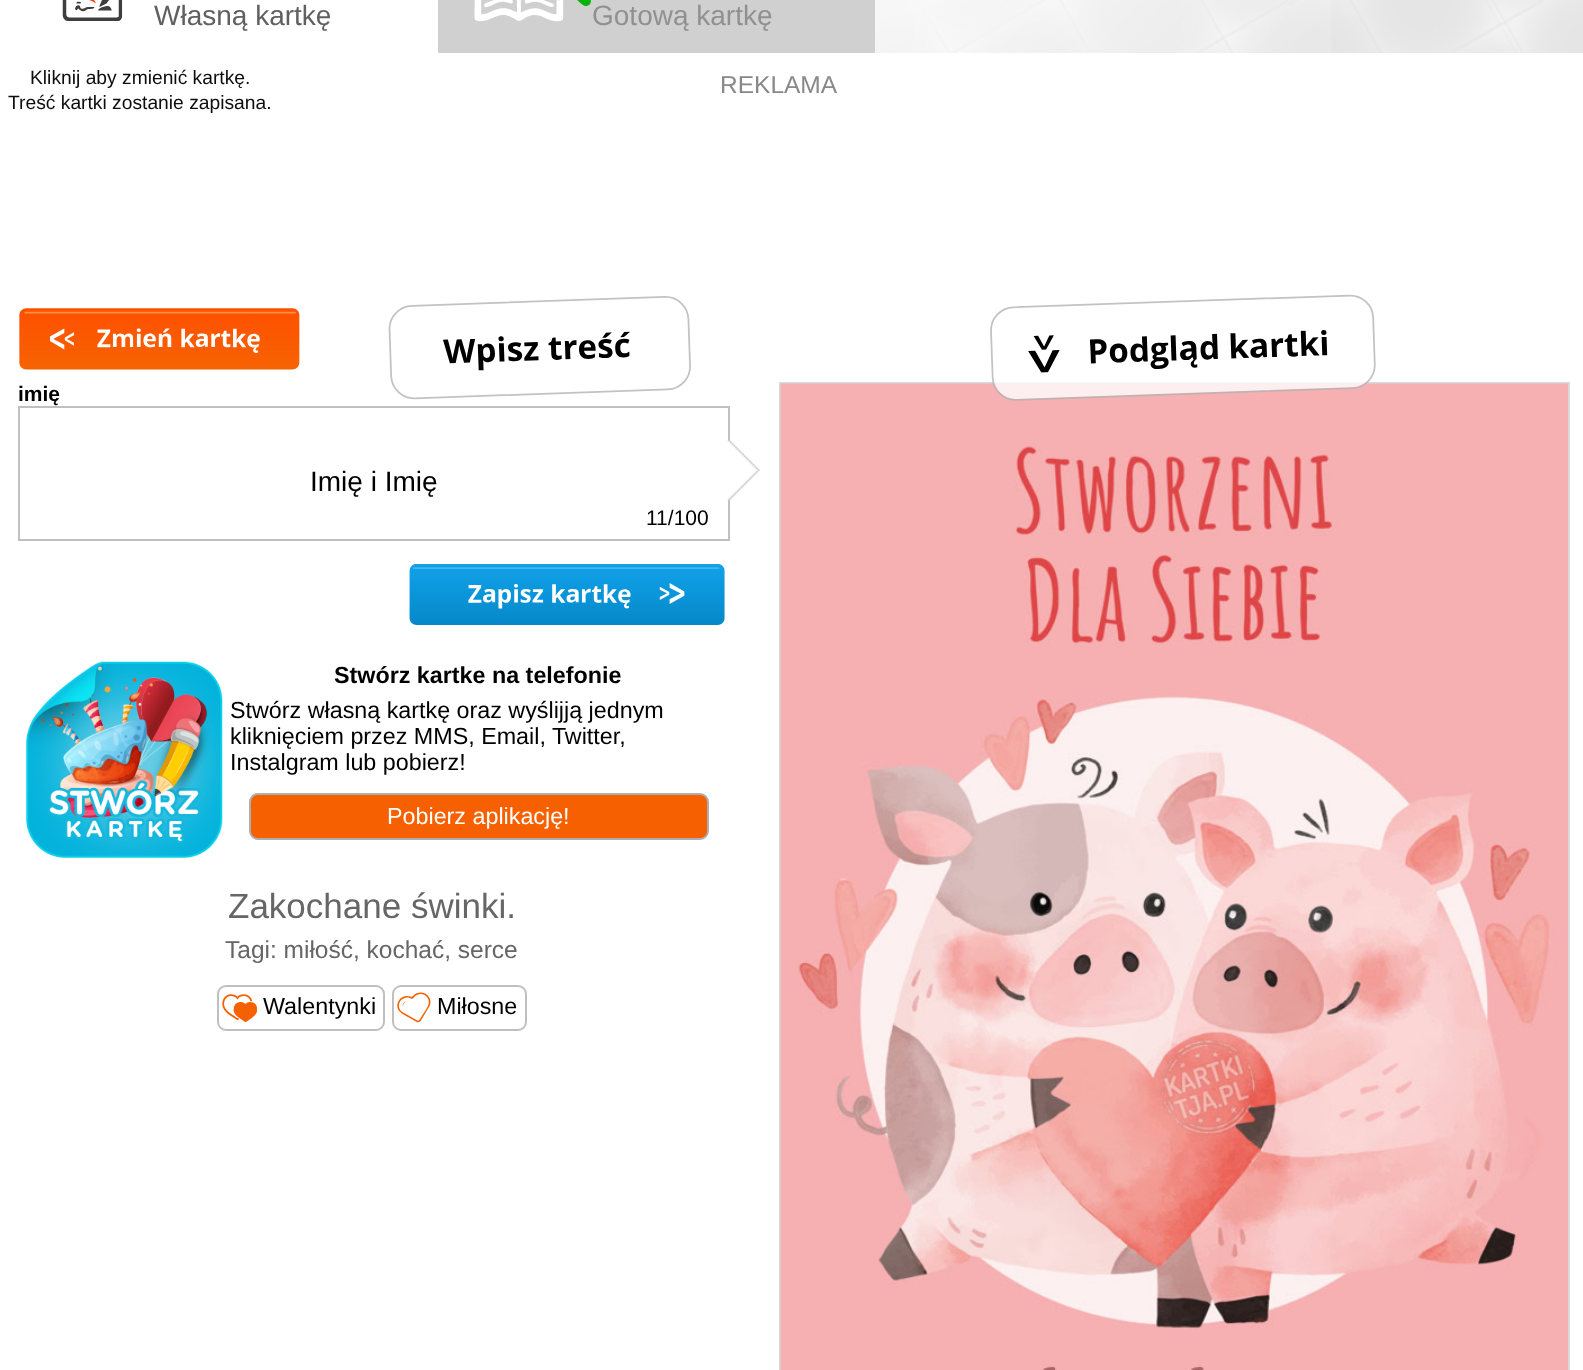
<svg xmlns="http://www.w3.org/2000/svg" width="1583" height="1370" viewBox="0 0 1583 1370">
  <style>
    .t1 { font: 28px Liberation Sans; fill: #606060; }
    .t2 { font: 28px Liberation Sans; fill: #909090; }
    .t3 { font: 24.5px Liberation Sans; fill: #888; }
    .t4 { font: bold 21px Liberation Sans; fill: #000; }
    .t5 { font: 28px Liberation Sans; fill: #000; }
    .t6 { font: 21px Liberation Sans; fill: #000; }
    .t7 { font: bold 23.3px Liberation Sans; fill: #000; }
    .t8 { font: 23.3px Liberation Sans; fill: #000; }
    .t9 { font: 23.3px Liberation Sans; fill: #fff; }
    .t10 { font: 35px Liberation Sans; fill: #666; }
    .t11 { font: 24.5px Liberation Sans; fill: #666; }
    .t12 { font: 19.25px Liberation Sans; fill: #0d0d0d; }
  </style>
  <rect width="100%" height="100%" fill="#e5e5e5"/>
  <image x="875" y="0" width="456" height="53" href="images/1.png"/>
  <image x="875" y="0" width="708" height="53" href="images/2.png"/>
  <rect x="0" y="0" width="438" height="53" fill="#fff"/>
  <image x="62" y="0" width="61" height="21" href="images/3.png"/>
  <text x="154" y="25" class="t1">Własną kartkę</text>
  <rect x="438" y="0" width="437" height="53" fill="#d0d0d0"/>
  <image x="474" y="0" width="117" height="22" href="images/4.png"/>
  <text x="592" y="25" class="t2">Gotową kartkę</text>
  <rect x="0" y="53" width="1583" height="1317" fill="#fff"/>
  <text x="720" y="93" class="t3">REKLAMA</text>
  <image x="19" y="308" width="281" height="62" href="images/5.png"/>
  <image x="388" y="296" width="303" height="104" href="images/6.png"/>
  <text x="18" y="401" class="t4">imię</text>
  <rect x="19" y="407" width="710" height="133" fill="none" stroke="#c0c0c0" stroke-width="2"/>
  <text x="310" y="491" class="t5">Imię i Imię</text>
  <text x="646" y="525" class="t6">11/100</text>
  <image x="727" y="439" width="33" height="62" href="images/7.png"/>
  <rect x="780" y="383" width="789" height="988" fill="none" stroke="#d9d9d9" stroke-width="2"/>
  <image x="780" y="383" width="788" height="987" href="images/9.png"/>
  <image x="990" y="294" width="386" height="107" href="images/8.png"/>
  <image x="409" y="564" width="316" height="61" href="images/10.png"/>
  <image x="26" y="661" width="197" height="197" href="images/11.png"/>
  <text x="334" y="683" class="t7">Stwórz kartke na telefonie</text>
  <text x="230" y="718" class="t8">Stwórz własną kartkę oraz wyślijją jednym</text>
  <text x="230" y="744" class="t8">kliknięciem przez MMS, Email, Twitter,</text>
  <text x="230" y="770" class="t8">Instalgram lub pobierz!</text>
  <rect x="250" y="794" width="458" height="45" rx="8" fill="#f76001" stroke="#aeaeae" stroke-width="2"/>
  <text x="387" y="824" class="t9">Pobierz aplikację!</text>
  <text x="228" y="918" class="t10">Zakochane świnki.</text>
  <text x="225" y="958" class="t11">Tagi: miłość, kochać, serce</text>
  <rect x="218" y="986" width="166" height="44" rx="8" fill="none" stroke="#c0c0c0" stroke-width="2"/>
  <image x="222" y="994" width="35" height="29" href="images/12.png"/>
  <text x="263" y="1014" class="t8">Walentynki</text>
  <rect x="393" y="986" width="133" height="44" rx="8" fill="none" stroke="#c0c0c0" stroke-width="2"/>
  <image x="397" y="992" width="34" height="31" href="images/13.png"/>
  <text x="437" y="1014" class="t8">Miłosne</text>
  <text x="30" y="84" class="t12">Kliknij aby zmienić kartkę.</text>
  <text x="8" y="109" class="t12">Treść kartki zostanie zapisana.</text>
</svg>
